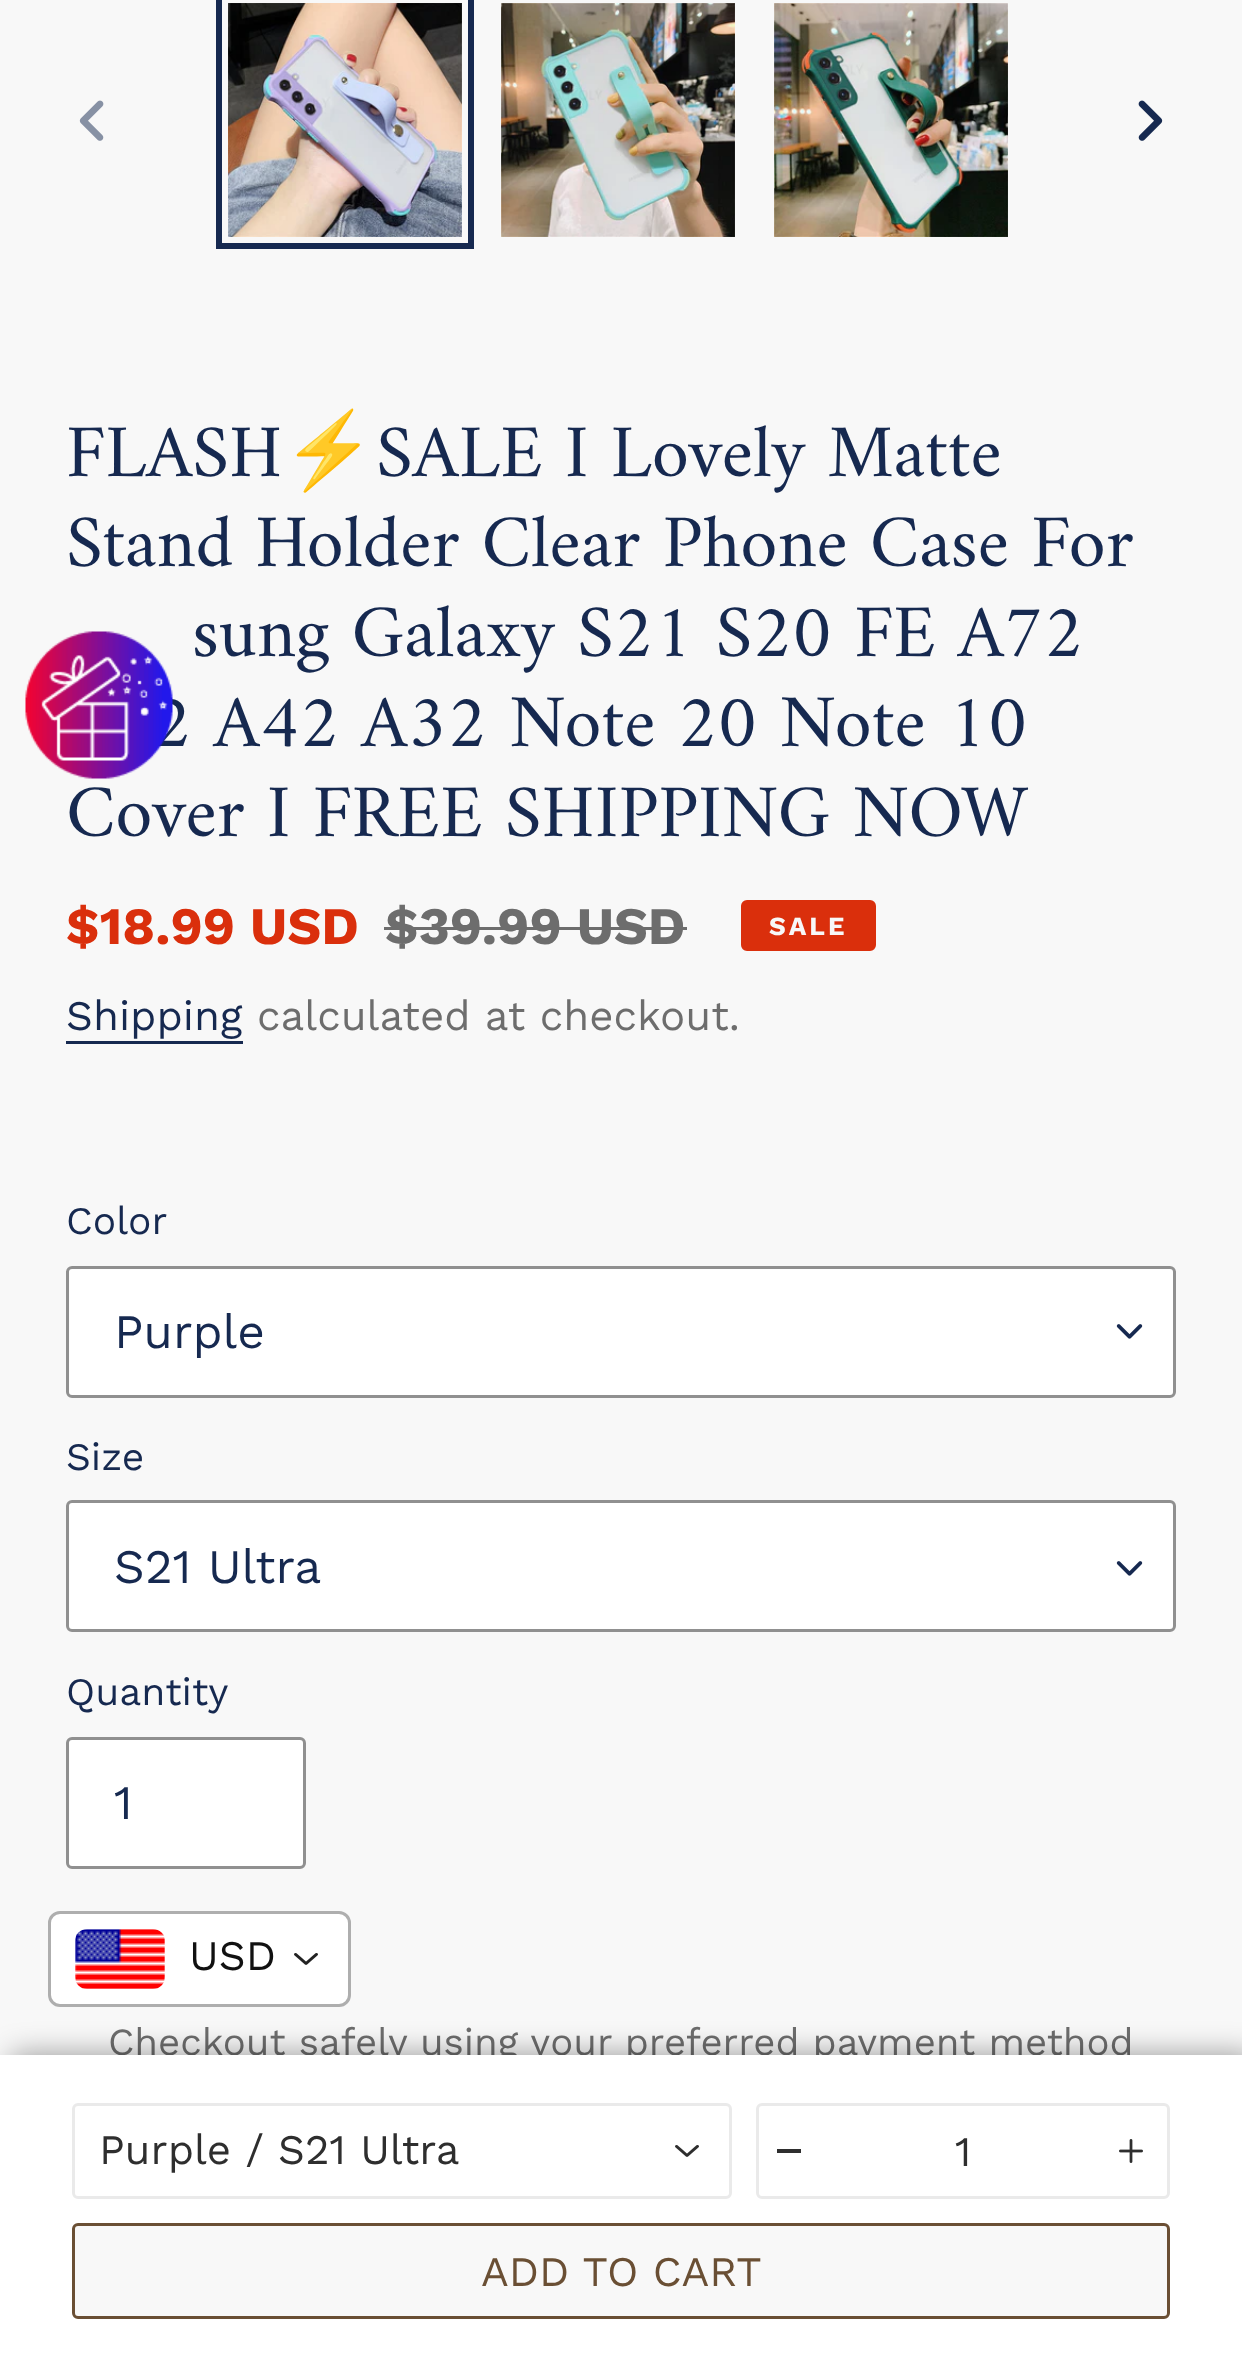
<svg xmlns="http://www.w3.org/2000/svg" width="1242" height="2367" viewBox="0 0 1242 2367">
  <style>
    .t1 { font: 75px Amiri; fill: #162950; }
    .t2 { font: 75px Noto Color Emoji; fill: #162950; }
    .t3 { font: bold 52.5px Work Sans; fill: #da2f0c; }
    .t4 { font: bold 52.5px Work Sans; fill: #6d6d6d; }
    .t5 { font: bold 26px Work Sans; letter-spacing: 3px; fill: #f8f8f8; }
    .t6 { font: 42px Work Sans; fill: #162950; }
    .t7 { font: 42px Work Sans; fill: #6d6d6d; }
    .t8 { font: 39px Work Sans; fill: #162950; }
    .t9 { font: 48px Work Sans; fill: #162950; }
    .t10 { font: 38.4px Work Sans; fill: #6d6d6d; }
    .t11 { font: 42px Work Sans; fill: #111; }
    .t12 { font: 42px Work Sans; fill: #2e2e2e; }
    .t13 { font: 42px Work Sans; fill: #6a4f34; }
  </style>
  <rect width="100%" height="100%" fill="#f8f8f8"/>
  <image x="79" y="100" width="25" height="41" href="images/1.png"/>
  <rect x="219" y="-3" width="252" height="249" fill="none" stroke="#162950" stroke-width="6"/>
  <image x="228" y="3" width="234" height="234" href="images/2.png"/>
  <image x="501" y="3" width="234" height="234" href="images/3.png"/>
  <image x="774" y="3" width="234" height="234" href="images/4.png"/>
  <image x="1138" y="100" width="25" height="41" href="images/5.png"/>
  <text x="66" y="476" class="t1">FLASH</text>
  <text x="282" y="476" class="t2">⚡</text>
  <text x="376" y="476" class="t1">SALE I Lovely Matte</text>
  <text x="66" y="566" class="t1">Stand Holder Clear Phone Case For</text>
  <text x="192" y="656" class="t1">sung Galaxy S21 S20 FE A72</text>
  <text x="152" y="746" class="t1">2 A42 A32 Note 20 Note 10</text>
  <text x="66" y="836" class="t1">Cover I FREE SHIPPING NOW</text>
  <text x="66" y="944" class="t3">$18.99 USD</text>
  <text x="385" y="944" class="t4">$39.99 USD</text>
  <rect x="384" y="927" width="303" height="3" fill="#6d6d6d"/>
  <rect x="742.5" y="901.5" width="132" height="48" rx="4.5" fill="#da2f0c" stroke="#da2f0c" stroke-width="3"/>
  <text x="769" y="935" class="t5">SALE</text>
  <text x="66" y="1030" class="t6">Shipping</text>
  <rect x="66" y="1041" width="177" height="3" fill="#162950"/>
  <text x="257" y="1030" class="t7">calculated at checkout.</text>
  <text x="66" y="1234" class="t8">Color</text>
  <rect x="66" y="1266" width="1110" height="132" rx="6" fill="#fff"/>
  <image x="1116" y="1324" width="27" height="15" href="images/6.png"/>
  <rect x="67.5" y="1267.5" width="1107" height="129" rx="4.5" fill="none" stroke="#909090" stroke-width="3"/>
  <text x="114" y="1348" class="t9">Purple</text>
  <text x="66" y="1470" class="t8">Size</text>
  <rect x="66" y="1500" width="1110" height="132" rx="6" fill="#fff"/>
  <image x="1116" y="1561" width="27" height="15" href="images/6.png"/>
  <rect x="67.5" y="1501.5" width="1107" height="129" rx="4.5" fill="none" stroke="#909090" stroke-width="3"/>
  <text x="114" y="1583" class="t9">S21 Ultra</text>
  <text x="66" y="1705" class="t8">Quantity</text>
  <rect x="67.5" y="1738.5" width="237" height="129" rx="4.5" fill="#fff" stroke="#909090" stroke-width="3"/>
  <text x="114" y="1819" class="t9">1</text>
  <text x="108" y="2055" class="t10">Checkout safely using your preferred payment method</text>
  <image x="25" y="631" width="148" height="148" href="images/7.png"/>
  <rect x="49.5" y="1912.5" width="300" height="93" rx="10.5" fill="#fff" stroke="#aeaeae" stroke-width="3"/>
  <image x="75" y="1929" width="90" height="60" href="images/8.png"/>
  <text x="189" y="1970" class="t11">USD</text>
  <image x="294" y="1953" width="24" height="12" href="images/9.png"/>
  <rect x="12" y="2055" width="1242" height="312" fill="#00000066" filter="blur(15px)"/>
  <rect x="0" y="2055" width="1242" height="312" fill="#fff"/>
  <rect x="73.5" y="2104.5" width="657" height="93" rx="4.5" fill="none" stroke="#eaeaea" stroke-width="3"/>
  <text x="99" y="2164" class="t12">Purple / S21 Ultra</text>
  <image x="675" y="2145" width="24" height="12" href="images/10.png"/>
  <rect x="757.5" y="2104.5" width="411" height="93" rx="4.5" fill="none" stroke="#eaeaea" stroke-width="3"/>
  <rect x="777" y="2149" width="24" height="4" fill="#2e2e2e"/>
  <text x="955" y="2166" class="t12">1</text>
  <image x="1119" y="2139" width="24" height="24" href="images/11.png"/>
  <rect x="73.5" y="2224.5" width="1095" height="93" rx="4.5" fill="#f8f8f8" stroke="#6a4f34" stroke-width="3"/>
  <text x="481" y="2286" class="t13">ADD TO CART</text>
</svg>
